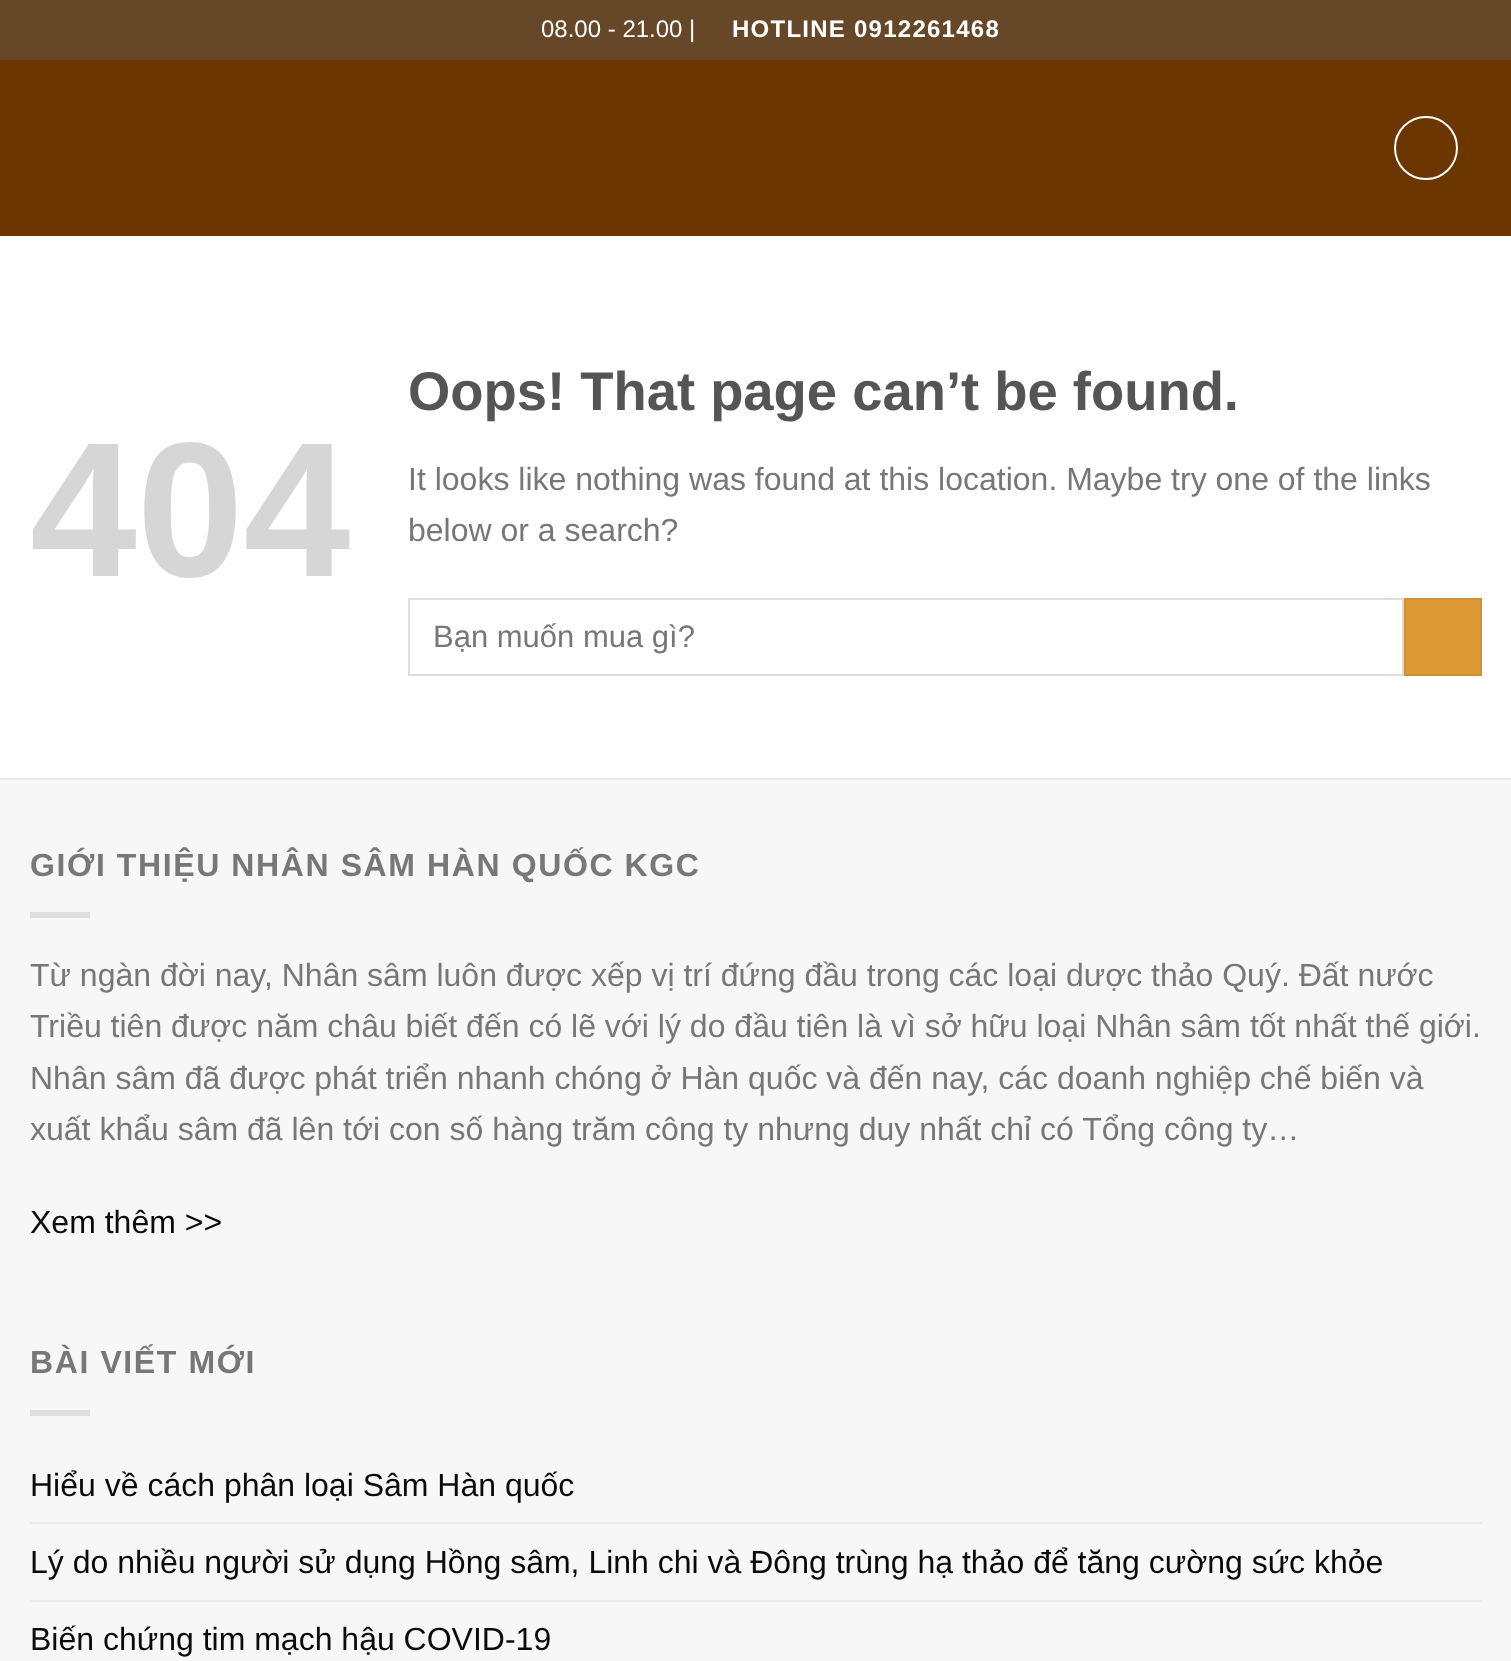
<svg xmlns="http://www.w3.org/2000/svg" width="1511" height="1661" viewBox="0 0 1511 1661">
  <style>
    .t1 { font: 24px Liberation Sans; fill: #fff; }
    .t2 { font: bold 24px Liberation Sans; letter-spacing: 1.25px; fill: #fff; }
    .t3 { font: bold 192px Liberation Sans; fill: #d6d6d6; }
    .t4 { font: bold 54.4px Liberation Sans; fill: #555; }
    .t5 { font: 32px Liberation Sans; fill: #777; }
    .t6 { font: 31px Liberation Sans; fill: #777; }
    .t7 { font: bold 32px Liberation Sans; letter-spacing: 1.6px; fill: #777; }
    .t8 { font: 32px Liberation Sans; fill: #0a0a0a; }
  </style>
  <rect width="100%" height="100%" fill="#fff"/>
  <rect x="0" y="60" width="1511" height="176" fill="#6b3600"/>
  <rect x="0" y="0" width="1511" height="60" fill="#664727"/>
  <text x="541" y="37" class="t1">08.00 - 21.00 |</text>
  <text x="732" y="37" class="t2">HOTLINE 0912261468</text>
  <circle cx="1426" cy="148" r="31" fill="none" stroke="#fff" stroke-width="2"/>
  <text x="30" y="576" class="t3">404</text>
  <text x="408" y="410" class="t4">Oops! That page can’t be found.</text>
  <text x="408" y="490" class="t5">It looks like nothing was found at this location. Maybe try one of the links</text>
  <text x="408" y="541" class="t5">below or a search?</text>
  <rect x="409" y="599" width="994" height="76" fill="none" stroke="#ddd" stroke-width="2"/>
  <text x="433" y="647" class="t6">Bạn muốn mua gì?</text>
  <rect x="1405" y="599" width="76" height="76" fill="#d93" stroke="#d29130" stroke-width="2"/>
  <rect x="0" y="780" width="1511" height="881" fill="#f7f7f7"/>
  <rect x="0" y="778" width="1511" height="2" fill="#ebebeb"/>
  <text x="30" y="876" class="t7">GIỚI THIỆU NHÂN SÂM HÀN QUỐC KGC</text>
  <rect x="30" y="912" width="60" height="6" fill="#dedede"/>
  <text x="30" y="986" class="t5">Từ ngàn đời nay, Nhân sâm luôn được xếp vị trí đứng đầu trong các loại dược thảo Quý. Đất nước</text>
  <text x="30" y="1037" class="t5">Triều tiên được năm châu biết đến có lẽ với lý do đầu tiên là vì sở hữu loại Nhân sâm tốt nhất thế giới.</text>
  <text x="30" y="1089" class="t5">Nhân sâm đã được phát triển nhanh chóng ở Hàn quốc và đến nay, các doanh nghiệp chế biến và</text>
  <text x="30" y="1140" class="t5">xuất khẩu sâm đã lên tới con số hàng trăm công ty nhưng duy nhất chỉ có Tổng công ty…</text>
  <text x="30" y="1233" class="t8">Xem thêm &gt;&gt;</text>
  <text x="30" y="1373" class="t7">BÀI VIẾT MỚI</text>
  <rect x="30" y="1410" width="60" height="6" fill="#dedede"/>
  <text x="30" y="1496" class="t8">Hiểu về cách phân loại Sâm Hàn quốc</text>
  <rect x="30" y="1522" width="1452" height="2" fill="#ececec"/>
  <text x="30" y="1573" class="t8">Lý do nhiều người sử dụng Hồng sâm, Linh chi và Đông trùng hạ thảo để tăng cường sức khỏe</text>
  <rect x="30" y="1600" width="1452" height="2" fill="#ececec"/>
  <text x="30" y="1650" class="t8">Biến chứng tim mạch hậu COVID-19</text>
</svg>
